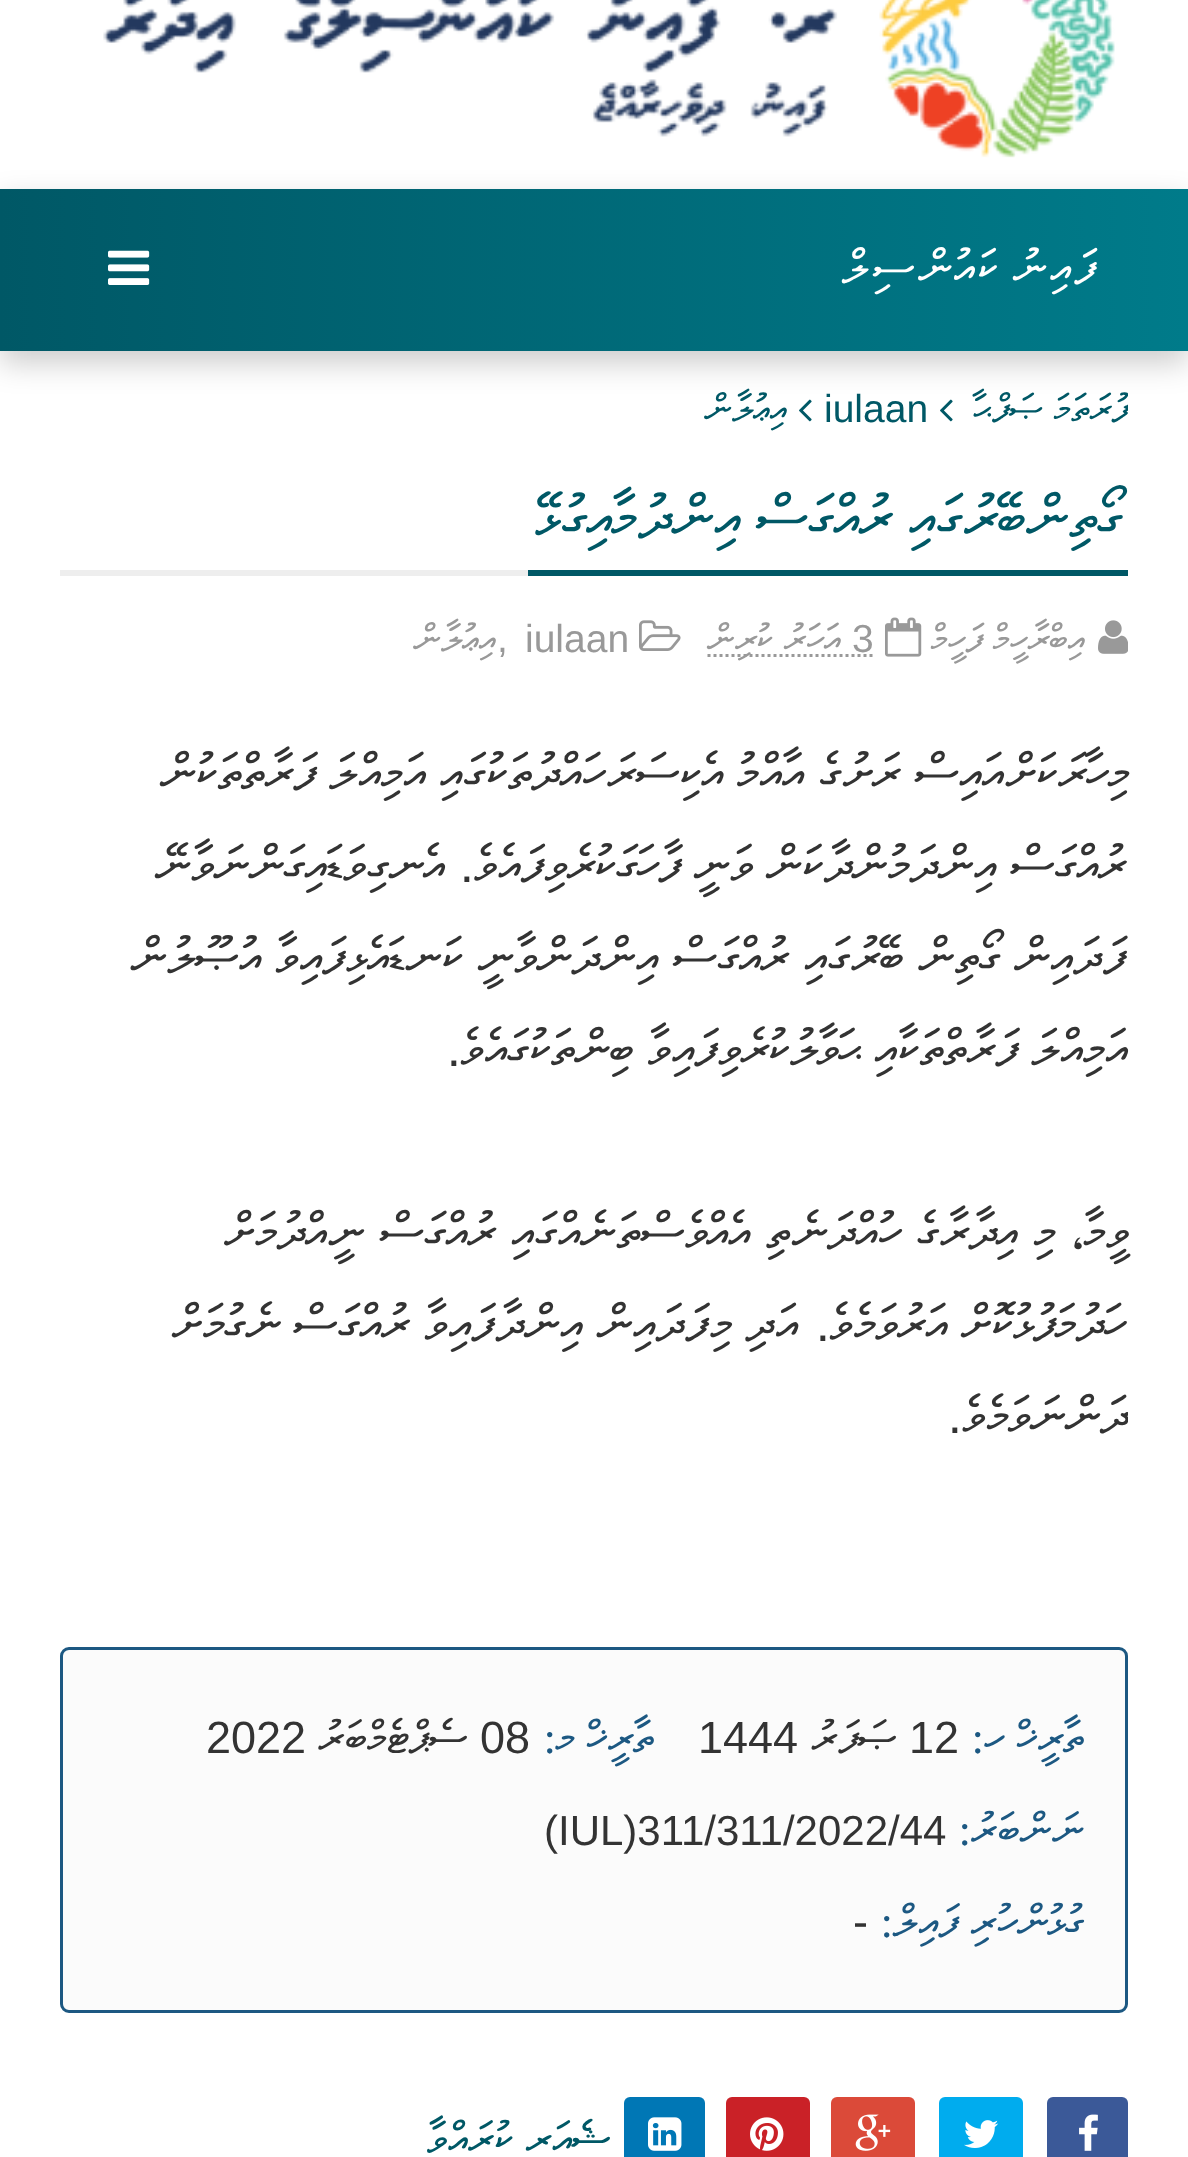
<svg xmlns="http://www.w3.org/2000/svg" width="1188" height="2157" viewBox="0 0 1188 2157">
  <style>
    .t1 { font: 48px FreeSerif; letter-spacing: 3px; direction: rtl; fill: #fff; }
    .t2 { font: 39px FreeSerif; direction: rtl; fill: #005866; }
    .t3 { font: 39px Liberation Sans; fill: #005866; }
    .t4 { font: 60px FreeSerif; direction: rtl; fill: #005866; }
    .t5 { font: 39px FreeSerif; direction: rtl; fill: #999; }
    .t6 { font: 39px Liberation Sans; fill: #999; }
    .t7 { font: 51px FreeSerif; direction: rtl; fill: #333; }
    .t8 { font: 51px Liberation Sans; direction: rtl; fill: #333; }
    .t9 { font: 45px FreeSerif; direction: rtl; fill: #1c5882; }
    .t10 { font: 45px Liberation Serif; direction: rtl; fill: #1c5882; }
    .t11 { font: 45px Liberation Sans; fill: #333; }
    .t12 { font: 45px FreeSerif; direction: rtl; fill: #333; }
    .t13 { font: 42px Liberation Sans; fill: #333; }
    .t14 { font: 45px FreeSerif; direction: rtl; fill: #005866; }
  </style>
  <defs>
    <linearGradient id="g1" gradientUnits="userSpaceOnUse" x1="0" y1="270" x2="1188" y2="270"><stop offset="0" stop-color="#005866"/><stop offset="1" stop-color="#007b8a"/></linearGradient>
    <clipPath id="clip1"><rect x="60" y="381" width="1068" height="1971"/></clipPath>
    <clipPath id="clip2"><rect x="60" y="729" width="1068" height="1308"/></clipPath>
  </defs>
  <rect width="100%" height="100%" fill="#fff"/>
  <image x="103" y="0" width="1012" height="158" href="images/1.png"/>
  <image x="940" y="399" width="13" height="23" href="images/3.png"/>
  <image x="799" y="399" width="13" height="23" href="images/3.png"/>
  <rect x="0" y="201" width="1188" height="162" fill="#00000033" filter="blur(15px)"/>
  <rect x="0" y="189" width="1188" height="162" fill="url(#g1)"/>
  <text x="1100" y="284" word-spacing="-3" class="t1">ފައިނު ކައުންސިލް</text>
  <image x="108" y="250" width="42" height="35" href="images/2.png"/>
  <g clip-path="url(#clip1)">
    <text x="1128" y="422" word-spacing="1" class="t2">ފުރަތަމަ ޞަފްޙާ</text>
  </g>
  <text x="824" y="422" class="t3">iulaan</text>
  <text x="788" y="422" class="t2">އިޢުލާން</text>
  <rect x="60" y="570" width="468" height="6" fill="#eee"/>
  <rect x="528" y="570" width="600" height="6" fill="#005866"/>
  <text x="1122" y="538" class="t4">ގޯތިންބޭރުގައި ރުއްގަސް އިންދުމާއިގުޅޭ</text>
  <image x="1098" y="620" width="30" height="34" href="images/4.png"/>
  <text x="1086" y="652" word-spacing="1" class="t5">އިބްރާހީމް ފަހީމް</text>
  <image x="885" y="617" width="37" height="40" href="images/5.png"/>
  <text x="852" y="652" class="t6">3</text>
  <path d="M851.5 655.5H873" fill="none" stroke="#999" stroke-width="3" stroke-dasharray="3 3"/>
  <path d="M707.5 655.5H851.5" fill="none" stroke="#999" stroke-width="3" stroke-dasharray="3 3"/>
  <text x="840" y="652" word-spacing="1" class="t5">އަހަރު ކުރިން</text>
  <image x="639" y="620" width="42" height="31" href="images/6.png"/>
  <text x="525" y="652" class="t6">iulaan</text>
  <text x="497" y="652" class="t6">,</text>
  <text x="497" y="652" class="t5">އިޢުލާން</text>
  <text x="1128" y="790" word-spacing="1.5" class="t7">މިހާރަކަށްއައިސް ރަށުގެ އާއްމު އެކިސަރަހައްދުތަކުގައި އަމިއްލަ ފަރާތްތަކުން</text>
  <text x="1128" y="882" word-spacing="1" class="t7">ރުއްގަސް އިންދަމުންދާކަން ވަނީ ފާހަގަކުރެވިފައެވެ</text>
  <text x="474" y="882" class="t8">.</text>
  <text x="445" y="882" class="t7">އެނގިވަޑައިގަންނަވާނޭ</text>
  <text x="1128" y="974" word-spacing="1.5" class="t7">ފަދައިން ގޯތިން ބޭރުގައި ރުއްގަސް އިންދަންވާނީ ކަނޑައެޅިފައިވާ އުޞޫލުން</text>
  <text x="1128" y="1066" word-spacing="1.5" class="t7">އަމިއްލަ ފަރާތްތަކާއި ޙަވާލުކުރެވިފައިވާ ބިންތަކުގައެވެ</text>
  <text x="461" y="1066" class="t8">.</text>
  <text x="1128" y="1249" word-spacing="1.5" class="t7">ވީމާ، މި އިދާރާގެ ހުއްދަނެތި އެއްވެސްތަނެއްގައި ރުއްގަސް ނީއްދުމަށް</text>
  <text x="1128" y="1341" word-spacing="1" class="t7">ހަދުމަފުޅުކޮށް އަރުވަމެވެ</text>
  <text x="830" y="1341" class="t8">.</text>
  <text x="800" y="1341" word-spacing="1" class="t7">އަދި މިފަދައިން އިންދާފައިވާ ރުއްގަސް ނެގުމަށް</text>
  <g clip-path="url(#clip2)">
    <text x="1128" y="1433" class="t7">ދަންނަވަމެވެ</text>
  </g>
  <text x="962" y="1433" class="t8">.</text>
  <rect x="61.5" y="1648.5" width="1065" height="363" rx="7.5" fill="#fbfbfb" stroke="#1c5882" stroke-width="3"/>
  <text x="1083" y="1753" class="t9">ތާރީޚް ހ</text>
  <text x="984" y="1753" class="t10">:</text>
  <text x="909" y="1753" class="t11">12</text>
  <text x="897" y="1753" class="t12">ޞަފަރު</text>
  <text x="698" y="1753" class="t11">1444</text>
  <text x="653" y="1753" class="t9">ތާރީޚް މ</text>
  <text x="556" y="1753" class="t10">:</text>
  <text x="480" y="1753" class="t11">08</text>
  <text x="468" y="1753" class="t12">ސެޕްޓެމްބަރު</text>
  <text x="206" y="1753" class="t11">2022</text>
  <text x="1083" y="1845" class="t9">ނަންބަރު</text>
  <text x="971" y="1845" class="t10">:</text>
  <text x="544" y="1845" class="t13">(IUL)311/311/2022/44</text>
  <text x="1083" y="1937" class="t9">ގުޅުންހުރި ފައިލް</text>
  <text x="893" y="1937" class="t10">:</text>
  <text x="853" y="1937" class="t11">-</text>
  <rect x="1047" y="2097" width="81" height="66" rx="6" fill="#3b5998"/>
  <image x="1079" y="2114" width="19" height="37" href="images/7.png"/>
  <rect x="939" y="2097" width="84" height="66" rx="6" fill="#00acee"/>
  <image x="964" y="2120" width="35" height="28" href="images/8.png"/>
  <rect x="831" y="2097" width="84" height="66" rx="6" fill="#db4a39"/>
  <image x="855" y="2114" width="36" height="37" href="images/9.png"/>
  <rect x="726" y="2097" width="84" height="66" rx="6" fill="#ca2127"/>
  <image x="750" y="2117" width="34" height="34" href="images/10.png"/>
  <rect x="624" y="2097" width="81" height="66" rx="6" fill="#0077b5"/>
  <image x="648" y="2117" width="34" height="34" href="images/11.png"/>
  <text x="611" y="2154" word-spacing="1" class="t14">ޝެއަރ ކުރައްވާ</text>
</svg>
